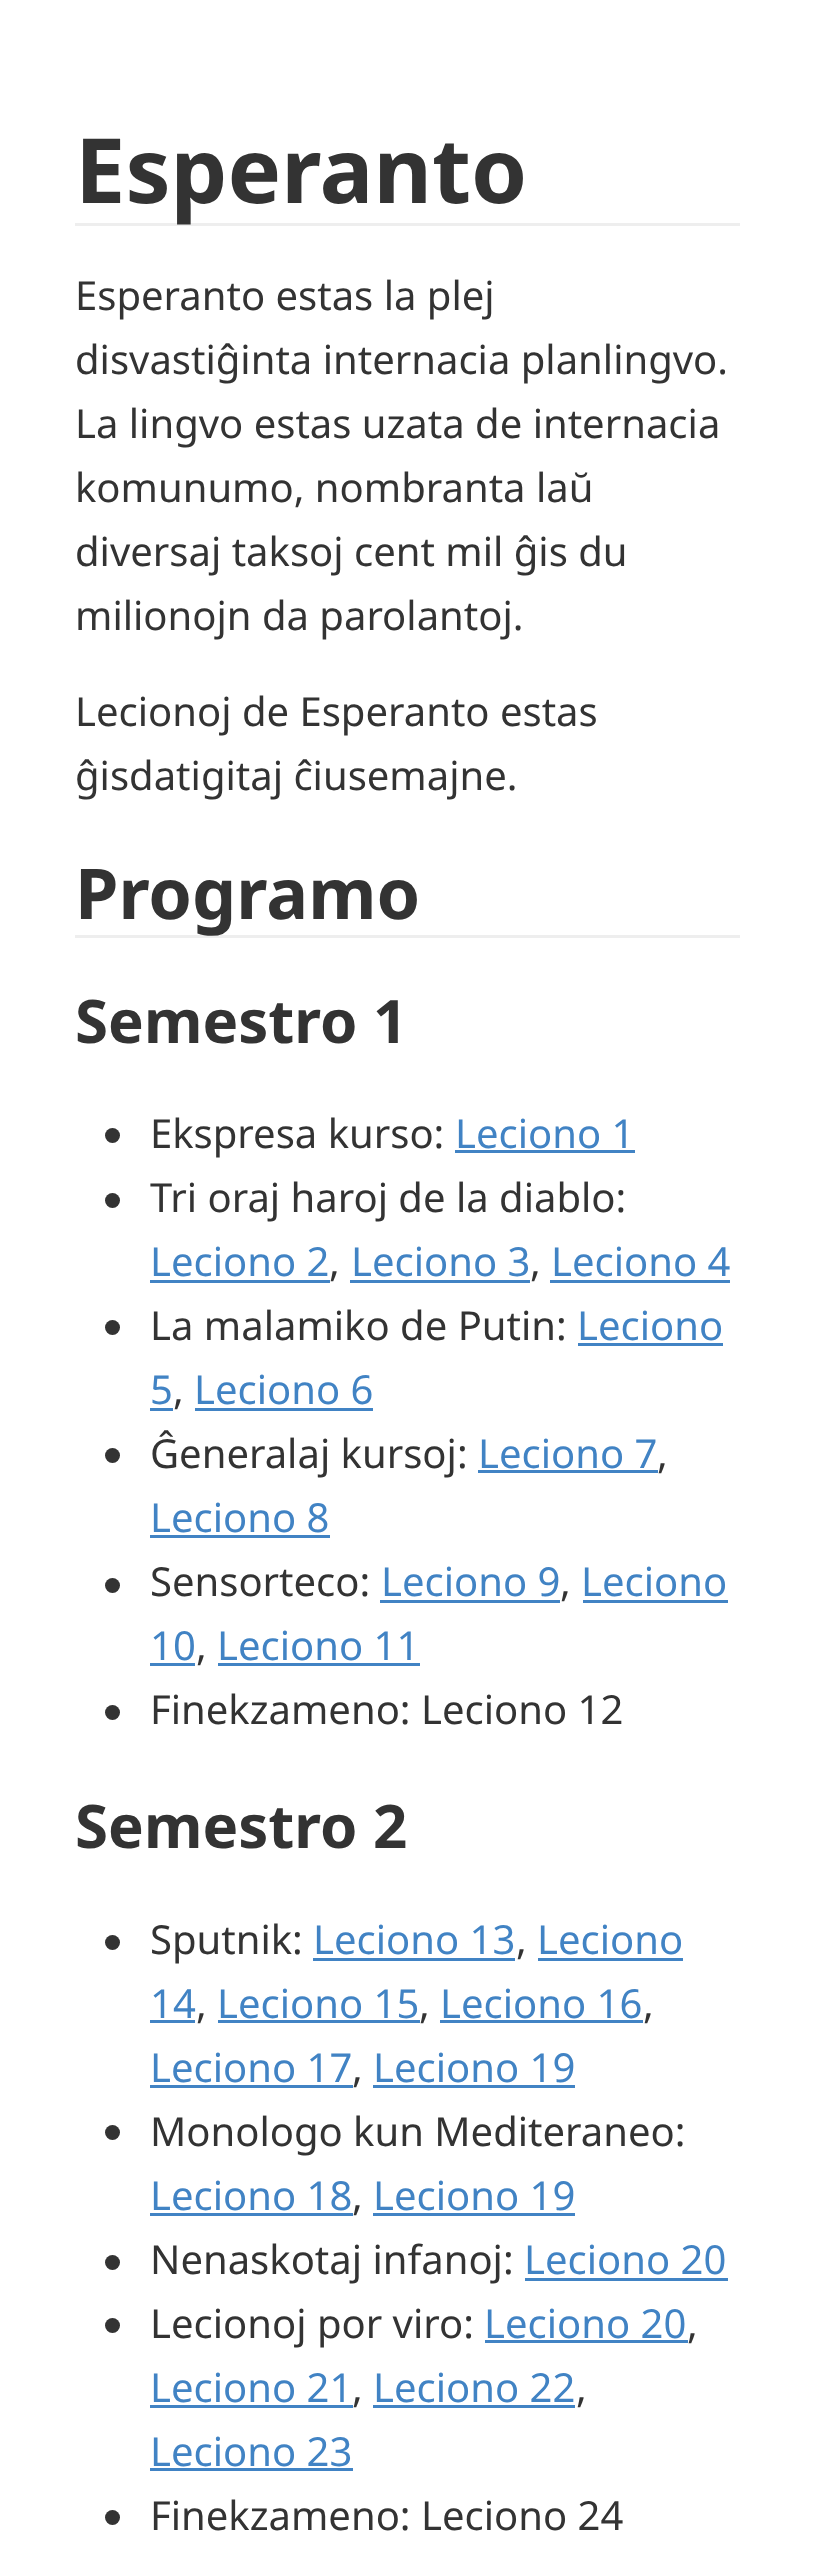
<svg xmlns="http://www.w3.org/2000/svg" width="813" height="2559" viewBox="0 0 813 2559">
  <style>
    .t1 { font: bold 90px Noto Sans; fill: #333; }
    .t2 { font: 40px Noto Sans; fill: #333; }
    .t3 { font: bold 70px Noto Sans; fill: #333; }
    .t4 { font: bold 60px Noto Sans; fill: #333; }
    .t5 { font: 40px Noto Sans; fill: #4183c4; }
  </style>
  <rect width="100%" height="100%" fill="#fff"/>
  <rect x="75" y="223" width="665" height="3" fill="#eee"/>
  <text x="75" y="203" class="t1">Esperanto</text>
  <text x="75" y="310" class="t2">Esperanto estas la plej</text>
  <text x="75" y="374" class="t2">disvastiĝinta internacia planlingvo.</text>
  <text x="75" y="438" class="t2">La lingvo estas uzata de internacia</text>
  <text x="75" y="502" class="t2">komunumo, nombranta laŭ</text>
  <text x="75" y="566" class="t2">diversaj taksoj cent mil ĝis du</text>
  <text x="75" y="630" class="t2">milionojn da parolantoj.</text>
  <text x="75" y="726" class="t2">Lecionoj de Esperanto estas</text>
  <text x="75" y="790" class="t2">ĝisdatigitaj ĉiusemajne.</text>
  <rect x="75" y="935" width="665" height="3" fill="#eee"/>
  <text x="75" y="919" class="t3">Programo</text>
  <text x="75" y="1043" class="t4">Semestro 1</text>
  <circle cx="112.5" cy="1135.5" r="7.5" fill="#333"/>
  <text x="150" y="1148" class="t2">Ekspresa kurso:</text>
  <text x="455" y="1148" class="t5">Leciono 1</text>
  <rect x="455" y="1150" width="180" height="3" fill="#4183c4"/>
  <circle cx="112.5" cy="1200.5" r="7.5" fill="#333"/>
  <text x="150" y="1212" class="t2">Tri oraj haroj de la diablo:</text>
  <text x="150" y="1276" class="t5">Leciono 2</text>
  <rect x="150" y="1280" width="180" height="3" fill="#4183c4"/>
  <text x="329" y="1276" class="t2">,</text>
  <text x="351" y="1276" class="t5">Leciono 3</text>
  <rect x="350" y="1280" width="180" height="3" fill="#4183c4"/>
  <text x="530" y="1276" class="t2">,</text>
  <text x="551" y="1276" class="t5">Leciono 4</text>
  <rect x="550" y="1280" width="180" height="3" fill="#4183c4"/>
  <circle cx="112.5" cy="1327.5" r="7.5" fill="#333"/>
  <text x="150" y="1340" class="t2">La malamiko de Putin:</text>
  <text x="577" y="1340" class="t5">Leciono</text>
  <rect x="578" y="1343" width="145" height="3" fill="#4183c4"/>
  <text x="150" y="1404" class="t5">5</text>
  <rect x="150" y="1408" width="23" height="3" fill="#4183c4"/>
  <text x="173" y="1404" class="t2">,</text>
  <text x="194" y="1404" class="t5">Leciono 6</text>
  <rect x="195" y="1408" width="178" height="3" fill="#4183c4"/>
  <circle cx="112.5" cy="1455.5" r="7.5" fill="#333"/>
  <text x="150" y="1468" class="t2">Ĝeneralaj kursoj:</text>
  <text x="478" y="1468" class="t5">Leciono 7</text>
  <rect x="478" y="1470" width="180" height="3" fill="#4183c4"/>
  <text x="657" y="1468" class="t2">,</text>
  <text x="150" y="1532" class="t5">Leciono 8</text>
  <rect x="150" y="1535" width="180" height="3" fill="#4183c4"/>
  <circle cx="112.5" cy="1585.5" r="7.5" fill="#333"/>
  <text x="150" y="1596" class="t2">Sensorteco:</text>
  <text x="381" y="1596" class="t5">Leciono 9</text>
  <rect x="380" y="1600" width="180" height="3" fill="#4183c4"/>
  <text x="581" y="1596" class="t5">Leciono</text>
  <rect x="583" y="1600" width="145" height="3" fill="#4183c4"/>
  <text x="560" y="1596" class="t2">,</text>
  <text x="150" y="1660" class="t5">10</text>
  <rect x="150" y="1663" width="45" height="3" fill="#4183c4"/>
  <text x="196" y="1660" class="t2">,</text>
  <text x="217" y="1660" class="t5">Leciono 11</text>
  <rect x="218" y="1663" width="202" height="3" fill="#4183c4"/>
  <circle cx="112.5" cy="1712.5" r="7.5" fill="#333"/>
  <text x="150" y="1724" class="t2">Finekzameno: Leciono 12</text>
  <text x="75" y="1848" class="t4">Semestro 2</text>
  <circle cx="112.5" cy="1942.5" r="7.5" fill="#333"/>
  <text x="150" y="1954" class="t2">Sputnik:</text>
  <text x="313" y="1954" class="t5">Leciono 13</text>
  <rect x="313" y="1958" width="202" height="3" fill="#4183c4"/>
  <text x="537" y="1954" class="t5">Leciono</text>
  <rect x="538" y="1958" width="145" height="3" fill="#4183c4"/>
  <text x="516" y="1954" class="t2">,</text>
  <text x="150" y="2018" class="t5">14</text>
  <rect x="150" y="2020" width="45" height="3" fill="#4183c4"/>
  <text x="196" y="2018" class="t2">,</text>
  <text x="217" y="2018" class="t5">Leciono 15</text>
  <rect x="218" y="2020" width="202" height="3" fill="#4183c4"/>
  <text x="419" y="2018" class="t2">,</text>
  <text x="440" y="2018" class="t5">Leciono 16</text>
  <rect x="440" y="2020" width="203" height="3" fill="#4183c4"/>
  <text x="643" y="2018" class="t2">,</text>
  <text x="150" y="2082" class="t5">Leciono 17</text>
  <rect x="150" y="2085" width="203" height="3" fill="#4183c4"/>
  <text x="352" y="2082" class="t2">,</text>
  <text x="373" y="2082" class="t5">Leciono 19</text>
  <rect x="373" y="2085" width="202" height="3" fill="#4183c4"/>
  <circle cx="112.5" cy="2132.5" r="7.5" fill="#333"/>
  <text x="150" y="2146" class="t2">Monologo kun Mediteraneo:</text>
  <text x="150" y="2210" class="t5">Leciono 18</text>
  <rect x="150" y="2213" width="203" height="3" fill="#4183c4"/>
  <text x="352" y="2210" class="t2">,</text>
  <text x="373" y="2210" class="t5">Leciono 19</text>
  <rect x="373" y="2213" width="202" height="3" fill="#4183c4"/>
  <circle cx="112.5" cy="2262.5" r="7.5" fill="#333"/>
  <text x="150" y="2274" class="t2">Nenaskotaj infanoj:</text>
  <text x="524" y="2274" class="t5">Leciono 20</text>
  <rect x="525" y="2278" width="203" height="3" fill="#4183c4"/>
  <circle cx="112.5" cy="2325.5" r="7.5" fill="#333"/>
  <text x="150" y="2338" class="t2">Lecionoj por viro:</text>
  <text x="484" y="2338" class="t5">Leciono 20</text>
  <rect x="485" y="2340" width="203" height="3" fill="#4183c4"/>
  <text x="687" y="2338" class="t2">,</text>
  <text x="150" y="2402" class="t5">Leciono 21</text>
  <rect x="150" y="2405" width="203" height="3" fill="#4183c4"/>
  <text x="352" y="2402" class="t2">,</text>
  <text x="373" y="2402" class="t5">Leciono 22</text>
  <rect x="373" y="2405" width="202" height="3" fill="#4183c4"/>
  <text x="576" y="2402" class="t2">,</text>
  <text x="150" y="2466" class="t5">Leciono 23</text>
  <rect x="150" y="2468" width="203" height="3" fill="#4183c4"/>
  <circle cx="112.5" cy="2517.5" r="7.5" fill="#333"/>
  <text x="150" y="2530" class="t2">Finekzameno: Leciono 24</text>
</svg>
